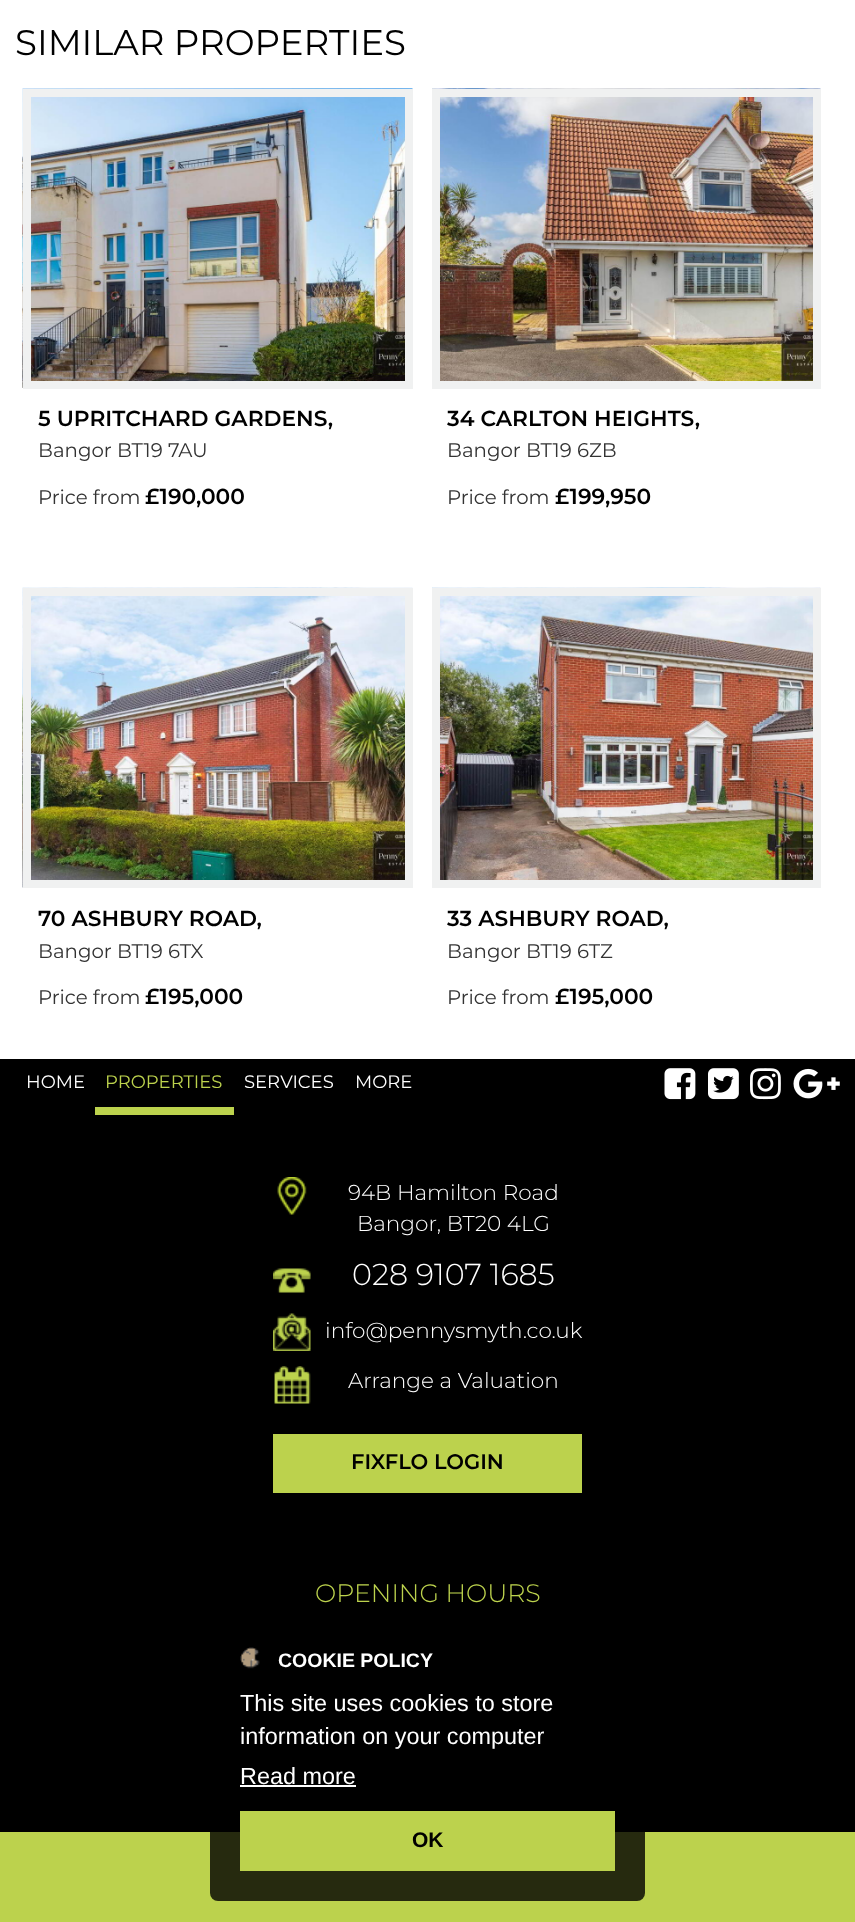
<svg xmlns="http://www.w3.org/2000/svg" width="855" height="1922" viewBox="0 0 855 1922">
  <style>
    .t1 { font: 35.6px Montserrat; fill: #000; }
    .t2 { font: 600 21.75px Montserrat; fill: #000; }
    .t3 { font: 19.75px Montserrat; fill: #333; }
    .t4 { font: 18px Montserrat; fill: #fff; }
    .t5 { font: 18px Montserrat; fill: #bcd24d; }
    .t6 { font: 300 21.6px Montserrat; fill: #fff; }
    .t7 { font: 300 30.25px Montserrat; fill: #fff; }
    .t8 { font: 600 21px Montserrat; fill: #000; }
    .t9 { font: 300 25.25px Montserrat; fill: #bcd24d; }
    .t10 { font: bold 19.5px Liberation Sans; fill: #fff; }
    .t11 { font: 23.4px Liberation Sans; fill: #fff; }
    .t12 { font: bold 21px Liberation Sans; fill: #000; }
  </style>
  <rect width="100%" height="100%" fill="#fff"/>
  <text x="15" y="55" class="t1">SIMILAR PROPERTIES</text>
  <image x="22" y="88" width="391" height="300" href="images/1.png"/>
  <rect x="27" y="93" width="382" height="292" fill="none" stroke="#f0f1f1" stroke-width="8"/>
  <text x="38" y="426" class="t2">5 UPRITCHARD GARDENS,</text>
  <text x="38" y="457" class="t3">Bangor BT19 7AU</text>
  <text x="38" y="504" class="t3">Price from</text>
  <text x="145" y="504" class="t2">£190,000</text>
  <image x="432" y="88" width="389" height="293" href="images/2.png"/>
  <rect x="436" y="93" width="381" height="292" fill="none" stroke="#f0f1f1" stroke-width="8"/>
  <text x="447" y="426" class="t2">34 CARLTON HEIGHTS,</text>
  <text x="447" y="457" class="t3">Bangor BT19 6ZB</text>
  <text x="447" y="504" class="t3">Price from</text>
  <text x="555" y="504" class="t2">£199,950</text>
  <image x="22" y="587" width="391" height="301" href="images/3.png"/>
  <rect x="27" y="592" width="382" height="292" fill="none" stroke="#f0f1f1" stroke-width="8"/>
  <text x="38" y="926" class="t2">70 ASHBURY ROAD,</text>
  <text x="38" y="958" class="t3">Bangor BT19 6TX</text>
  <text x="38" y="1004" class="t3">Price from</text>
  <text x="145" y="1004" class="t2">£195,000</text>
  <image x="432" y="587" width="389" height="293" href="images/4.png"/>
  <rect x="436" y="592" width="381" height="292" fill="none" stroke="#f0f1f1" stroke-width="8"/>
  <text x="447" y="926" class="t2">33 ASHBURY ROAD,</text>
  <text x="447" y="958" class="t3">Bangor BT19 6TZ</text>
  <text x="447" y="1004" class="t3">Price from</text>
  <text x="555" y="1004" class="t2">£195,000</text>
  <rect x="0" y="1059" width="855" height="773" fill="#000"/>
  <text x="26" y="1088" class="t4">HOME</text>
  <rect x="95" y="1107" width="139" height="8" fill="#bcd24d"/>
  <text x="105" y="1088" class="t5">PROPERTIES</text>
  <text x="244" y="1088" class="t4">SERVICES</text>
  <text x="355" y="1088" class="t4">MORE</text>
  <image x="664" y="1068" width="32" height="32" href="images/5.png"/>
  <image x="708" y="1068" width="31" height="32" href="images/6.png"/>
  <image x="750" y="1068" width="31" height="32" href="images/7.png"/>
  <image x="793" y="1068" width="47" height="31" href="images/8.png"/>
  <image x="277" y="1177" width="30" height="38" href="images/9.png"/>
  <text x="348" y="1200" class="t6">94B Hamilton Road</text>
  <text x="357" y="1231" class="t6">Bangor, BT20 4LG</text>
  <image x="273" y="1268" width="38" height="25" href="images/10.png"/>
  <text x="352" y="1285" class="t7">028 9107 1685</text>
  <image x="273" y="1313" width="38" height="38" href="images/11.png"/>
  <text x="325" y="1338" class="t6">info@pennysmyth.co.uk</text>
  <image x="274" y="1366" width="37" height="38" href="images/12.png"/>
  <text x="348" y="1388" class="t6">Arrange a Valuation</text>
  <rect x="273" y="1434" width="309" height="59" fill="#bcd24d"/>
  <text x="351" y="1469" class="t8">FIXFLO LOGIN</text>
  <text x="315" y="1602" class="t9">OPENING HOURS</text>
  <rect x="0" y="1832" width="855" height="90" fill="#bcd24d"/>
  <rect x="210" y="1613" width="435" height="288" rx="8" fill="#000000cc"/>
  <image x="240" y="1647" width="20" height="22" href="images/13.png"/>
  <text x="278" y="1667" class="t10">COOKIE POLICY</text>
  <text x="240" y="1711" class="t11">This site uses cookies to store</text>
  <text x="240" y="1744" class="t11">information on your computer</text>
  <text x="240" y="1784" class="t11">Read more</text>
  <rect x="240" y="1785" width="116" height="2" fill="#fff"/>
  <rect x="240" y="1811" width="375" height="60" fill="#bcd24d"/>
  <text x="412" y="1847" class="t12">OK</text>
</svg>
